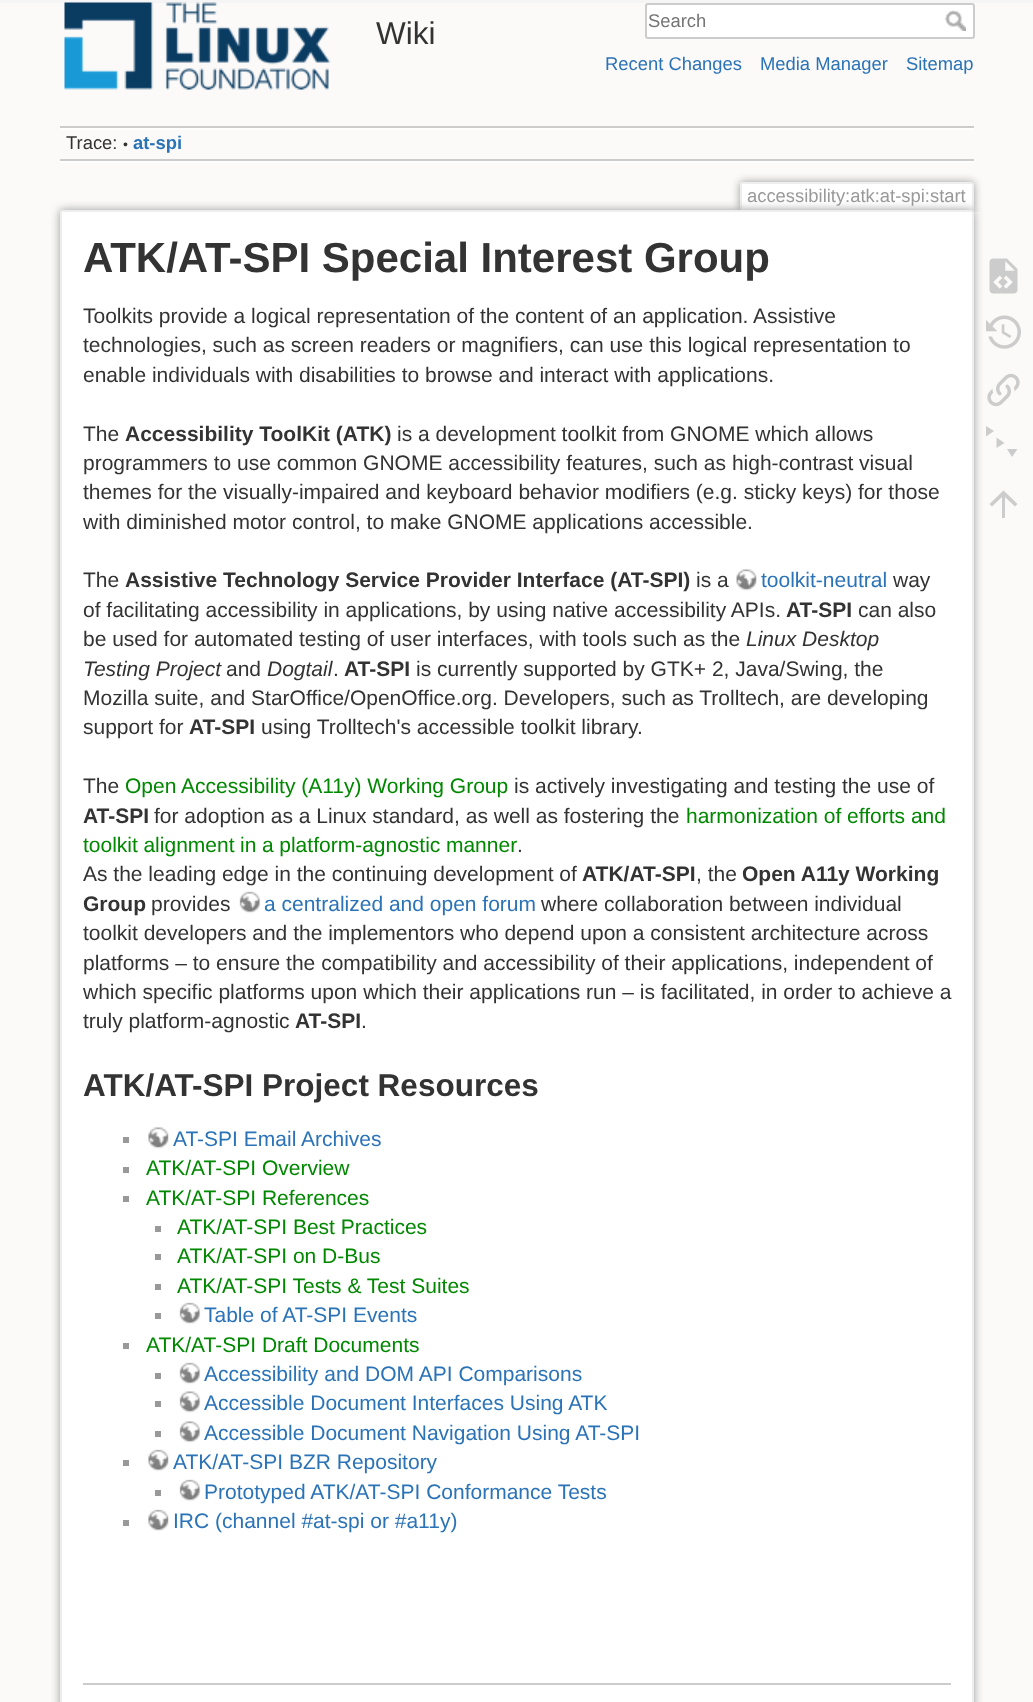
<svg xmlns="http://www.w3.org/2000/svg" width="1033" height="1702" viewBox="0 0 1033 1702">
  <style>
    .t1 { font: 31.5px Liberation Sans; fill: #333; }
    .t2 { font: 18.4px Liberation Sans; fill: #757575; }
    .t3 { font: 18.4px Liberation Sans; fill: #2b73b7; }
    .t4 { font: 18.4px Liberation Sans; fill: #333; }
    .t5 { font: 14px Liberation Sans; fill: #333; }
    .t6 { font: bold 18.4px Liberation Sans; fill: #2b73b7; }
    .t7 { font: 18.4px Liberation Sans; fill: #999; }
    .t8 { font: bold 42px Liberation Sans; fill: #333; }
    .t9 { font: 21px Liberation Sans; fill: #333; }
    .t10 { font: bold 21px Liberation Sans; fill: #333; }
    .t11 { font: 21px Liberation Sans; fill: #2b73b7; }
    .t12 { font: italic 21px Liberation Sans; fill: #333; }
    .t13 { font: 21px Liberation Sans; fill: #080; }
    .t14 { font: bold 31.5px Liberation Sans; fill: #333; }
  </style>
  <defs>
    <clipPath id="clip1"><rect x="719" y="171" width="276" height="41"/></clipPath>
  </defs>
  <rect width="100%" height="100%" fill="#fbfaf9"/>
  <rect x="0" y="0" width="1033" height="3" fill="#f6f5f5"/>
  <image x="64" y="2" width="267" height="88" href="images/1.png"/>
  <text x="376" y="44" class="t1">Wiki</text>
  <rect x="646" y="4" width="328" height="34" rx="2" fill="#fff" stroke="#ccc" stroke-width="2"/>
  <text x="648" y="27" class="t2">Search</text>
  <image x="945" y="10" width="21" height="21" href="images/2.png"/>
  <text x="605" y="70" class="t3">Recent Changes</text>
  <text x="760" y="70" class="t3">Media Manager</text>
  <text x="906" y="70" class="t3">Sitemap</text>
  <rect x="60" y="126" width="914" height="2" fill="#ccc"/>
  <rect x="60" y="161" width="914" height="2" fill="#fff"/>
  <rect x="60" y="128" width="914" height="2" fill="#fff"/>
  <rect x="60" y="159" width="914" height="2" fill="#ccc"/>
  <text x="66" y="149" class="t4">Trace:</text>
  <text x="123" y="149" class="t5">•</text>
  <text x="133" y="149" class="t6">at-spi</text>
  <g clip-path="url(#clip1)">
    <rect x="740" y="182" width="234" height="30" rx="3" fill="#999" filter="blur(4.5px)"/>
  </g>
  <rect x="742" y="184" width="230" height="27" fill="#fff"/>
  <rect x="741" y="182" width="231" height="2" fill="#eee"/>
  <rect x="972" y="183" width="2" height="29" fill="#eee"/>
  <rect x="740" y="183" width="2" height="29" fill="#eee"/>
  <text x="747" y="202" class="t7">accessibility:atk:at-spi:start</text>
  <rect x="60" y="210" width="914" height="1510" rx="3" fill="#999" filter="blur(5px)"/>
  <rect x="61" y="211" width="912" height="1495" rx="2" fill="#fff" stroke="#eee" stroke-width="2"/>
  <text x="83" y="272" class="t8">ATK/AT-SPI Special Interest Group</text>
  <text x="83" y="323" class="t9">Toolkits provide a logical representation of the content of an application. Assistive</text>
  <text x="83" y="352" class="t9">technologies, such as screen readers or magnifiers, can use this logical representation to</text>
  <text x="83" y="382" class="t9">enable individuals with disabilities to browse and interact with applications.</text>
  <text x="83" y="441" class="t9">The</text>
  <text x="125" y="441" class="t10">Accessibility ToolKit (ATK)</text>
  <text x="397" y="441" class="t9">is a development toolkit from GNOME which allows</text>
  <text x="83" y="470" class="t9">programmers to use common GNOME accessibility features, such as high-contrast visual</text>
  <text x="83" y="499" class="t9">themes for the visually-impaired and keyboard behavior modifiers (e.g. sticky keys) for those</text>
  <text x="83" y="529" class="t9">with diminished motor control, to make GNOME applications accessible.</text>
  <text x="83" y="587" class="t9">The</text>
  <text x="125" y="587" class="t10">Assistive Technology Service Provider Interface (AT-SPI)</text>
  <text x="696" y="587" class="t9">is a</text>
  <image x="736" y="569" width="21" height="22" href="images/3.png"/>
  <text x="761" y="587" class="t11">toolkit-neutral</text>
  <text x="893" y="587" class="t9">way</text>
  <text x="83" y="617" class="t9">of facilitating accessibility in applications, by using native accessibility APIs.</text>
  <text x="786" y="617" class="t10">AT-SPI</text>
  <text x="858" y="617" class="t9">can also</text>
  <text x="83" y="646" class="t9">be used for automated testing of user interfaces, with tools such as the</text>
  <text x="746" y="646" class="t12">Linux Desktop</text>
  <text x="83" y="676" class="t12">Testing Project</text>
  <text x="226" y="676" class="t9">and</text>
  <text x="267" y="676" class="t12">Dogtail</text>
  <text x="333" y="676" class="t9">.</text>
  <text x="344" y="676" class="t10">AT-SPI</text>
  <text x="416" y="676" class="t9">is currently supported by GTK+ 2, Java/Swing, the</text>
  <text x="83" y="705" class="t9">Mozilla suite, and StarOffice/OpenOffice.org. Developers, such as Trolltech, are developing</text>
  <text x="83" y="734" class="t9">support for</text>
  <text x="189" y="734" class="t10">AT-SPI</text>
  <text x="261" y="734" class="t9">using Trolltech's accessible toolkit library.</text>
  <text x="83" y="793" class="t9">The</text>
  <text x="125" y="793" class="t13">Open Accessibility (A11y) Working Group</text>
  <text x="514" y="793" class="t9">is actively investigating and testing the use of</text>
  <text x="83" y="823" class="t10">AT-SPI</text>
  <text x="154" y="823" class="t9">for adoption as a Linux standard, as well as fostering the</text>
  <text x="686" y="823" class="t13">harmonization of efforts and</text>
  <text x="83" y="852" word-spacing="-0.25" class="t13">toolkit alignment in a platform-agnostic manner</text>
  <text x="517" y="852" class="t9">.</text>
  <text x="83" y="881" class="t9">As the leading edge in the continuing development of</text>
  <text x="582" y="881" class="t10">ATK/AT-SPI</text>
  <text x="696" y="881" class="t9">, the</text>
  <text x="742" y="881" class="t10">Open A11y Working</text>
  <text x="83" y="911" class="t10">Group</text>
  <text x="151" y="911" class="t9">provides</text>
  <image x="239" y="891" width="22" height="23" href="images/4.png"/>
  <text x="264" y="911" class="t11">a centralized and open forum</text>
  <text x="541" y="911" class="t9">where collaboration between individual</text>
  <text x="83" y="940" class="t9">toolkit developers and the implementors who depend upon a consistent architecture across</text>
  <text x="83" y="970" class="t9">platforms – to ensure the compatibility and accessibility of their applications, independent of</text>
  <text x="83" y="999" class="t9">which specific platforms upon which their applications run – is facilitated, in order to achieve a</text>
  <text x="83" y="1028" class="t9">truly platform-agnostic</text>
  <text x="295" y="1028" class="t10">AT-SPI</text>
  <text x="361" y="1028" class="t9">.</text>
  <text x="83" y="1096" class="t14">ATK/AT-SPI Project Resources</text>
  <rect x="123" y="1137" width="6" height="6" fill="#999"/>
  <image x="148" y="1127" width="21" height="22" href="images/5.png"/>
  <text x="173" y="1146" class="t11">AT-SPI Email Archives</text>
  <rect x="123" y="1167" width="6" height="6" fill="#999"/>
  <text x="146" y="1175" class="t13">ATK/AT-SPI Overview</text>
  <rect x="123" y="1196" width="6" height="6" fill="#999"/>
  <text x="146" y="1205" class="t13">ATK/AT-SPI References</text>
  <rect x="155" y="1226" width="6" height="6" fill="#999"/>
  <text x="177" y="1234" class="t13">ATK/AT-SPI Best Practices</text>
  <rect x="155" y="1254" width="6" height="6" fill="#999"/>
  <text x="177" y="1263" class="t13">ATK/AT-SPI on D-Bus</text>
  <rect x="155" y="1284" width="6" height="6" fill="#999"/>
  <text x="177" y="1293" class="t13">ATK/AT-SPI Tests &amp; Test Suites</text>
  <rect x="155" y="1313" width="6" height="6" fill="#999"/>
  <image x="179" y="1302" width="22" height="23" href="images/4.png"/>
  <text x="204" y="1322" class="t11">Table of AT-SPI Events</text>
  <rect x="123" y="1343" width="6" height="6" fill="#999"/>
  <text x="146" y="1352" class="t13">ATK/AT-SPI Draft Documents</text>
  <rect x="155" y="1373" width="6" height="6" fill="#999"/>
  <image x="179" y="1362" width="22" height="23" href="images/4.png"/>
  <text x="204" y="1381" class="t11">Accessibility and DOM API Comparisons</text>
  <rect x="155" y="1401" width="6" height="6" fill="#999"/>
  <image x="179" y="1391" width="22" height="22" href="images/6.png"/>
  <text x="204" y="1410" class="t11">Accessible Document Interfaces Using ATK</text>
  <rect x="155" y="1431" width="6" height="6" fill="#999"/>
  <image x="179" y="1421" width="22" height="22" href="images/6.png"/>
  <text x="204" y="1440" class="t11">Accessible Document Navigation Using AT-SPI</text>
  <rect x="123" y="1460" width="6" height="6" fill="#999"/>
  <image x="148" y="1449" width="21" height="23" href="images/7.png"/>
  <text x="173" y="1469" class="t11">ATK/AT-SPI BZR Repository</text>
  <rect x="155" y="1490" width="6" height="6" fill="#999"/>
  <image x="179" y="1479" width="22" height="23" href="images/4.png"/>
  <text x="204" y="1499" class="t11">Prototyped ATK/AT-SPI Conformance Tests</text>
  <rect x="123" y="1520" width="6" height="6" fill="#999"/>
  <image x="148" y="1509" width="21" height="23" href="images/7.png"/>
  <text x="173" y="1528" class="t11">IRC (channel #at-spi or #a11y)</text>
  <rect x="83" y="1683" width="868" height="2" fill="#ccc"/>
  <image x="989" y="258" width="29" height="36" href="images/8.png"/>
  <image x="986" y="315" width="35" height="34" href="images/9.png"/>
  <image x="987" y="373" width="33" height="34" href="images/10.png"/>
  <path d="M986 426L994 431L986 436.5ZM996.5 437.5L1004.5 443L996.5 448ZM1007 449H1017.5L1012 457Z" fill="#ccc"/>
  <path d="M1005 518H1002V497L992 506.5L989.5 504L1003.5 490.5L1017.5 504L1015 506.5L1005 497Z" fill="#ccc"/>
</svg>
